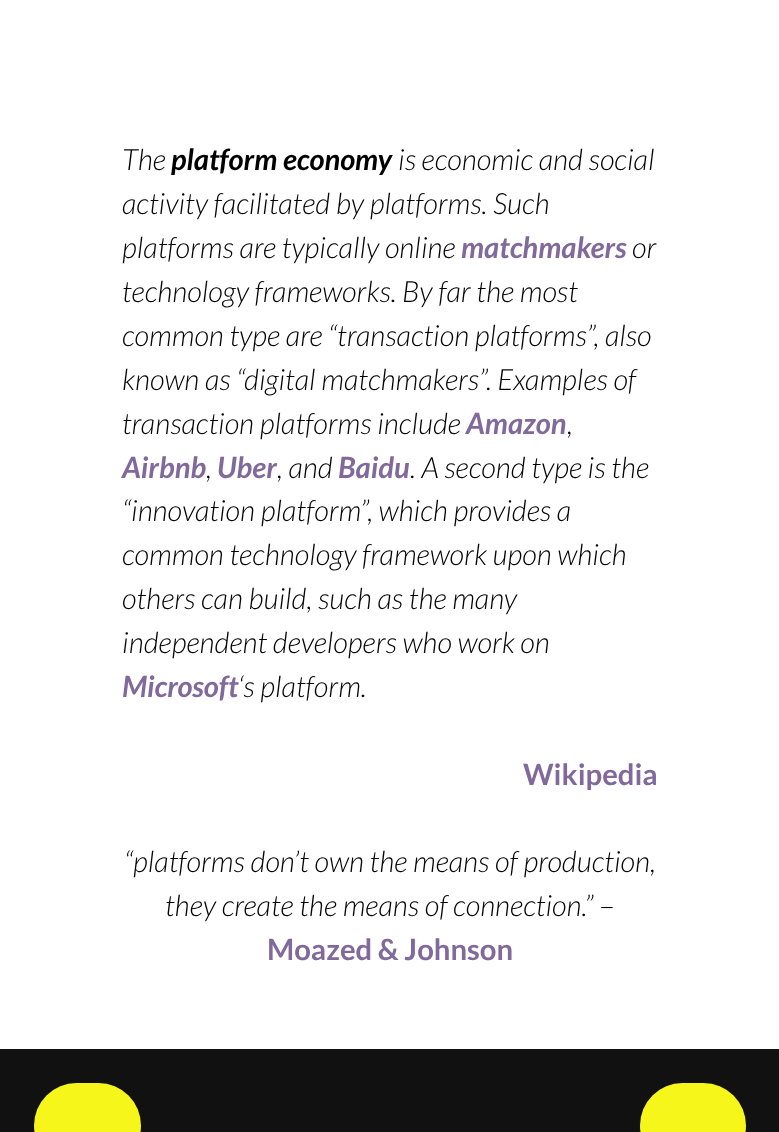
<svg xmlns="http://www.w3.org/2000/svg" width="779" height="1132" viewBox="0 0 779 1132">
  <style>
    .t1 { font: italic 300 29.25px Lato; fill: #000; }
    .t2 { font: italic bold 29.25px Lato; fill: #000; }
    .t3 { font: italic bold 29.25px Lato; fill: #81699b; }
    .t4 { font: bold 29.25px Lato; fill: #81699b; }
    .t5 { font: 300 29.25px Lato; fill: #000; }
  </style>
  <rect width="100%" height="100%" fill="#111"/>
  <rect x="0" y="0" width="779" height="1049" fill="#fff"/>
  <text x="122" y="170" class="t1">The</text>
  <text x="171" y="170" class="t2">platform economy</text>
  <text x="398" y="170" class="t1">is economic and social</text>
  <text x="122" y="214" class="t1">activity facilitated by platforms. Such</text>
  <text x="122" y="258" class="t1">platforms are typically online</text>
  <text x="461" y="258" class="t3">matchmakers</text>
  <text x="632" y="258" class="t1">or</text>
  <text x="122" y="302" class="t1">technology frameworks. By far the most</text>
  <text x="122" y="346" class="t1">common type are “transaction platforms”, also</text>
  <text x="122" y="390" class="t1">known as “digital matchmakers”. Examples of</text>
  <text x="122" y="434" class="t1">transaction platforms include</text>
  <text x="466" y="434" class="t3">Amazon</text>
  <text x="567" y="434" class="t1">,</text>
  <text x="122" y="478" class="t3">Airbnb</text>
  <text x="206" y="478" class="t1">,</text>
  <text x="217" y="478" class="t3">Uber</text>
  <text x="277" y="478" class="t1">, and</text>
  <text x="338" y="478" class="t3">Baidu</text>
  <text x="410" y="478" class="t1">. A second type is the</text>
  <text x="122" y="521" class="t1">“innovation platform”, which provides a</text>
  <text x="122" y="565" class="t1">common technology framework upon which</text>
  <text x="122" y="609" class="t1">others can build, such as the many</text>
  <text x="122" y="653" class="t1">independent developers who work on</text>
  <text x="122" y="697" class="t3">Microsoft</text>
  <text x="238" y="697" class="t1">‘s platform.</text>
  <text x="523" y="785" class="t4">Wikipedia</text>
  <text x="124" y="872" class="t1">“platforms don’t own the means of production,</text>
  <text x="165" y="916" class="t1">they create the means of connection.”</text>
  <text x="599" y="916" class="t5">–</text>
  <text x="267" y="960" class="t4">Moazed &amp; Johnson</text>
  <rect x="34" y="1083" width="107" height="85" rx="42.5" fill="#f7f61b"/>
  <rect x="640" y="1083" width="106" height="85" rx="42.5" fill="#f7f61b"/>
</svg>
